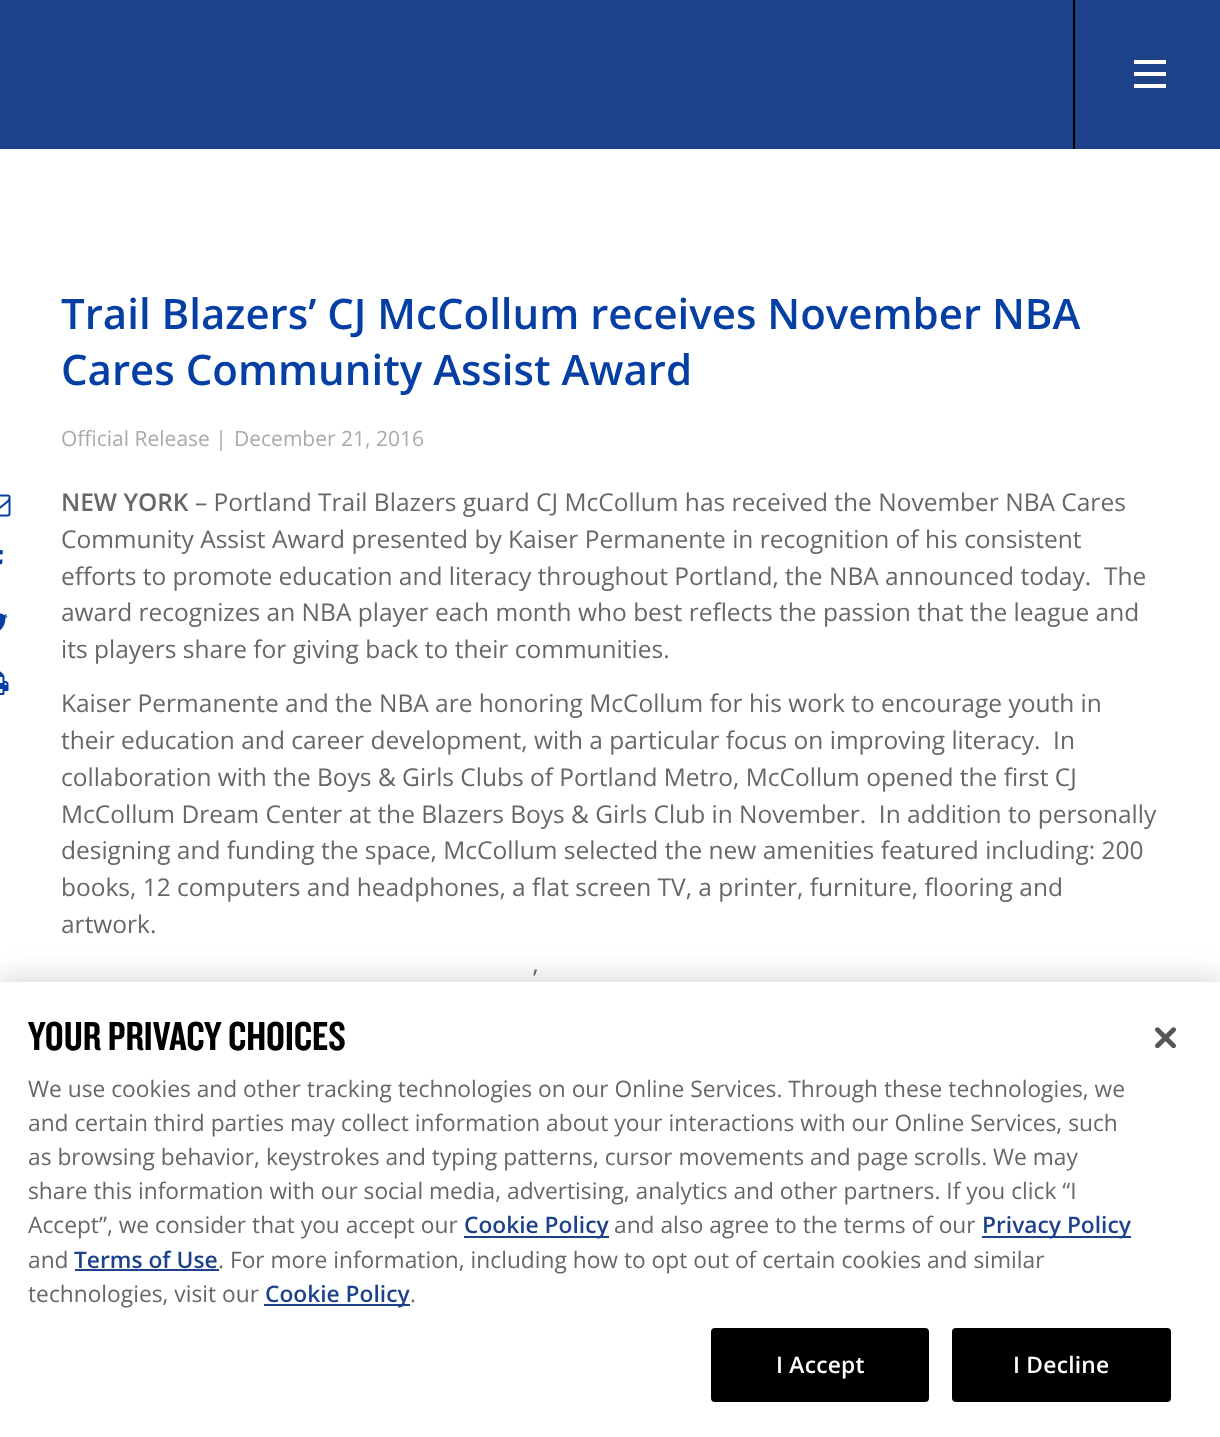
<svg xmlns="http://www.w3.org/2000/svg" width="1220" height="1437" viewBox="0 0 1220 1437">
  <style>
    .t1 { font: 600 42px Open Sans; fill: #063fa3; }
    .t2 { font: 21px Open Sans; fill: #aaa; }
    .t3 { font: 600 24.5px Open Sans; fill: #676767; }
    .t4 { font: 24.5px Open Sans; fill: #676767; }
    .t5 { font: 42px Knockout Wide; fill: #000; }
    .t6 { font: 22.75px Open Sans; fill: #676767; }
    .t7 { font: 600 22.75px Open Sans; fill: #1d428a; }
    .t8 { font: 600 22.75px Open Sans; letter-spacing: 0.25px; fill: #fff; }
  </style>
  <rect width="100%" height="100%" fill="#fff"/>
  <rect x="0" y="0" width="1220" height="149" fill="#1d428a"/>
  <rect x="1073" y="0" width="2" height="149" fill="#000"/>
  <rect x="1134" y="84" width="32" height="4" fill="#fff"/>
  <rect x="1134" y="72" width="32" height="4" fill="#fff"/>
  <rect x="1134" y="60" width="32" height="4" fill="#fff"/>
  <text x="61" y="329" class="t1">Trail Blazers’ CJ McCollum receives November NBA</text>
  <text x="61" y="385" class="t1">Cares Community Assist Award</text>
  <text x="61" y="446" class="t2">Official Release |</text>
  <text x="234" y="446" class="t2">December 21, 2016</text>
  <image x="0" y="494" width="11" height="23" href="images/1.png"/>
  <image x="0" y="550" width="3" height="15" href="images/2.png"/>
  <image x="0" y="613" width="8" height="18" href="images/3.png"/>
  <image x="0" y="671" width="9" height="24" href="images/4.png"/>
  <text x="61" y="511" class="t3">NEW YORK</text>
  <text x="195" y="511" class="t4">– Portland Trail Blazers guard CJ McCollum has received the November NBA Cares</text>
  <text x="61" y="548" class="t4">Community Assist Award presented by Kaiser Permanente in recognition of his consistent</text>
  <text x="61" y="585" class="t4" xml:space="preserve">efforts to promote education and literacy throughout Portland, the NBA announced today.  The</text>
  <text x="61" y="621" class="t4">award recognizes an NBA player each month who best reflects the passion that the league and</text>
  <text x="61" y="658" class="t4">its players share for giving back to their communities.</text>
  <text x="61" y="712" class="t4">Kaiser Permanente and the NBA are honoring McCollum for his work to encourage youth in</text>
  <text x="61" y="749" class="t4" xml:space="preserve">their education and career development, with a particular focus on improving literacy.  In</text>
  <text x="61" y="786" class="t4">collaboration with the Boys &amp; Girls Clubs of Portland Metro, McCollum opened the first CJ</text>
  <text x="61" y="823" class="t4" xml:space="preserve">McCollum Dream Center at the Blazers Boys &amp; Girls Club in November.  In addition to personally</text>
  <text x="61" y="859" class="t4">designing and funding the space, McCollum selected the new amenities featured including: 200</text>
  <text x="61" y="896" class="t4">books, 12 computers and headphones, a flat screen TV, a printer, furniture, flooring and</text>
  <text x="61" y="933" class="t4">artwork.</text>
  <text x="533" y="987" class="t4">’</text>
  <rect x="0" y="982" width="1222" height="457" fill="#00000033" filter="blur(16px)"/>
  <rect x="0" y="982" width="1220" height="455" fill="#fff"/>
  <text x="28" y="1050" class="t5">YOUR PRIVACY CHOICES</text>
  <text x="28" y="1097" class="t6">We use cookies and other tracking technologies on our Online Services. Through these technologies, we</text>
  <text x="28" y="1131" class="t6">and certain third parties may collect information about your interactions with our Online Services, such</text>
  <text x="28" y="1165" class="t6">as browsing behavior, keystrokes and typing patterns, cursor movements and page scrolls. We may</text>
  <text x="28" y="1199" class="t6">share this information with our social media, advertising, analytics and other partners. If you click “I</text>
  <text x="28" y="1233" class="t6">Accept”, we consider that you accept our</text>
  <rect x="464" y="1236" width="145" height="2" fill="#1d428a"/>
  <text x="464" y="1233" class="t7">Cookie Policy</text>
  <text x="614" y="1233" class="t6">and also agree to the terms of our</text>
  <rect x="982" y="1236" width="149" height="2" fill="#1d428a"/>
  <text x="982" y="1233" class="t7">Privacy Policy</text>
  <text x="28" y="1268" class="t6">and</text>
  <text x="74" y="1268" class="t7">Terms of Use</text>
  <rect x="75" y="1269" width="144" height="2" fill="#1d428a"/>
  <text x="218" y="1268" class="t6">. For more information, including how to opt out of certain cookies and similar</text>
  <text x="28" y="1302" class="t6">technologies, visit our</text>
  <rect x="264" y="1304" width="146" height="2" fill="#1d428a"/>
  <text x="265" y="1302" class="t7">Cookie Policy</text>
  <text x="410" y="1302" class="t6">.</text>
  <rect x="712" y="1329" width="216" height="72" rx="3" fill="#000" stroke="#000" stroke-width="2"/>
  <text x="776" y="1373" class="t8">I Accept</text>
  <rect x="953" y="1329" width="217" height="72" rx="3" fill="#000" stroke="#000" stroke-width="2"/>
  <text x="1013" y="1373" class="t8">I Decline</text>
  <image x="1155" y="1027" width="21" height="21" href="images/5.png"/>
</svg>
